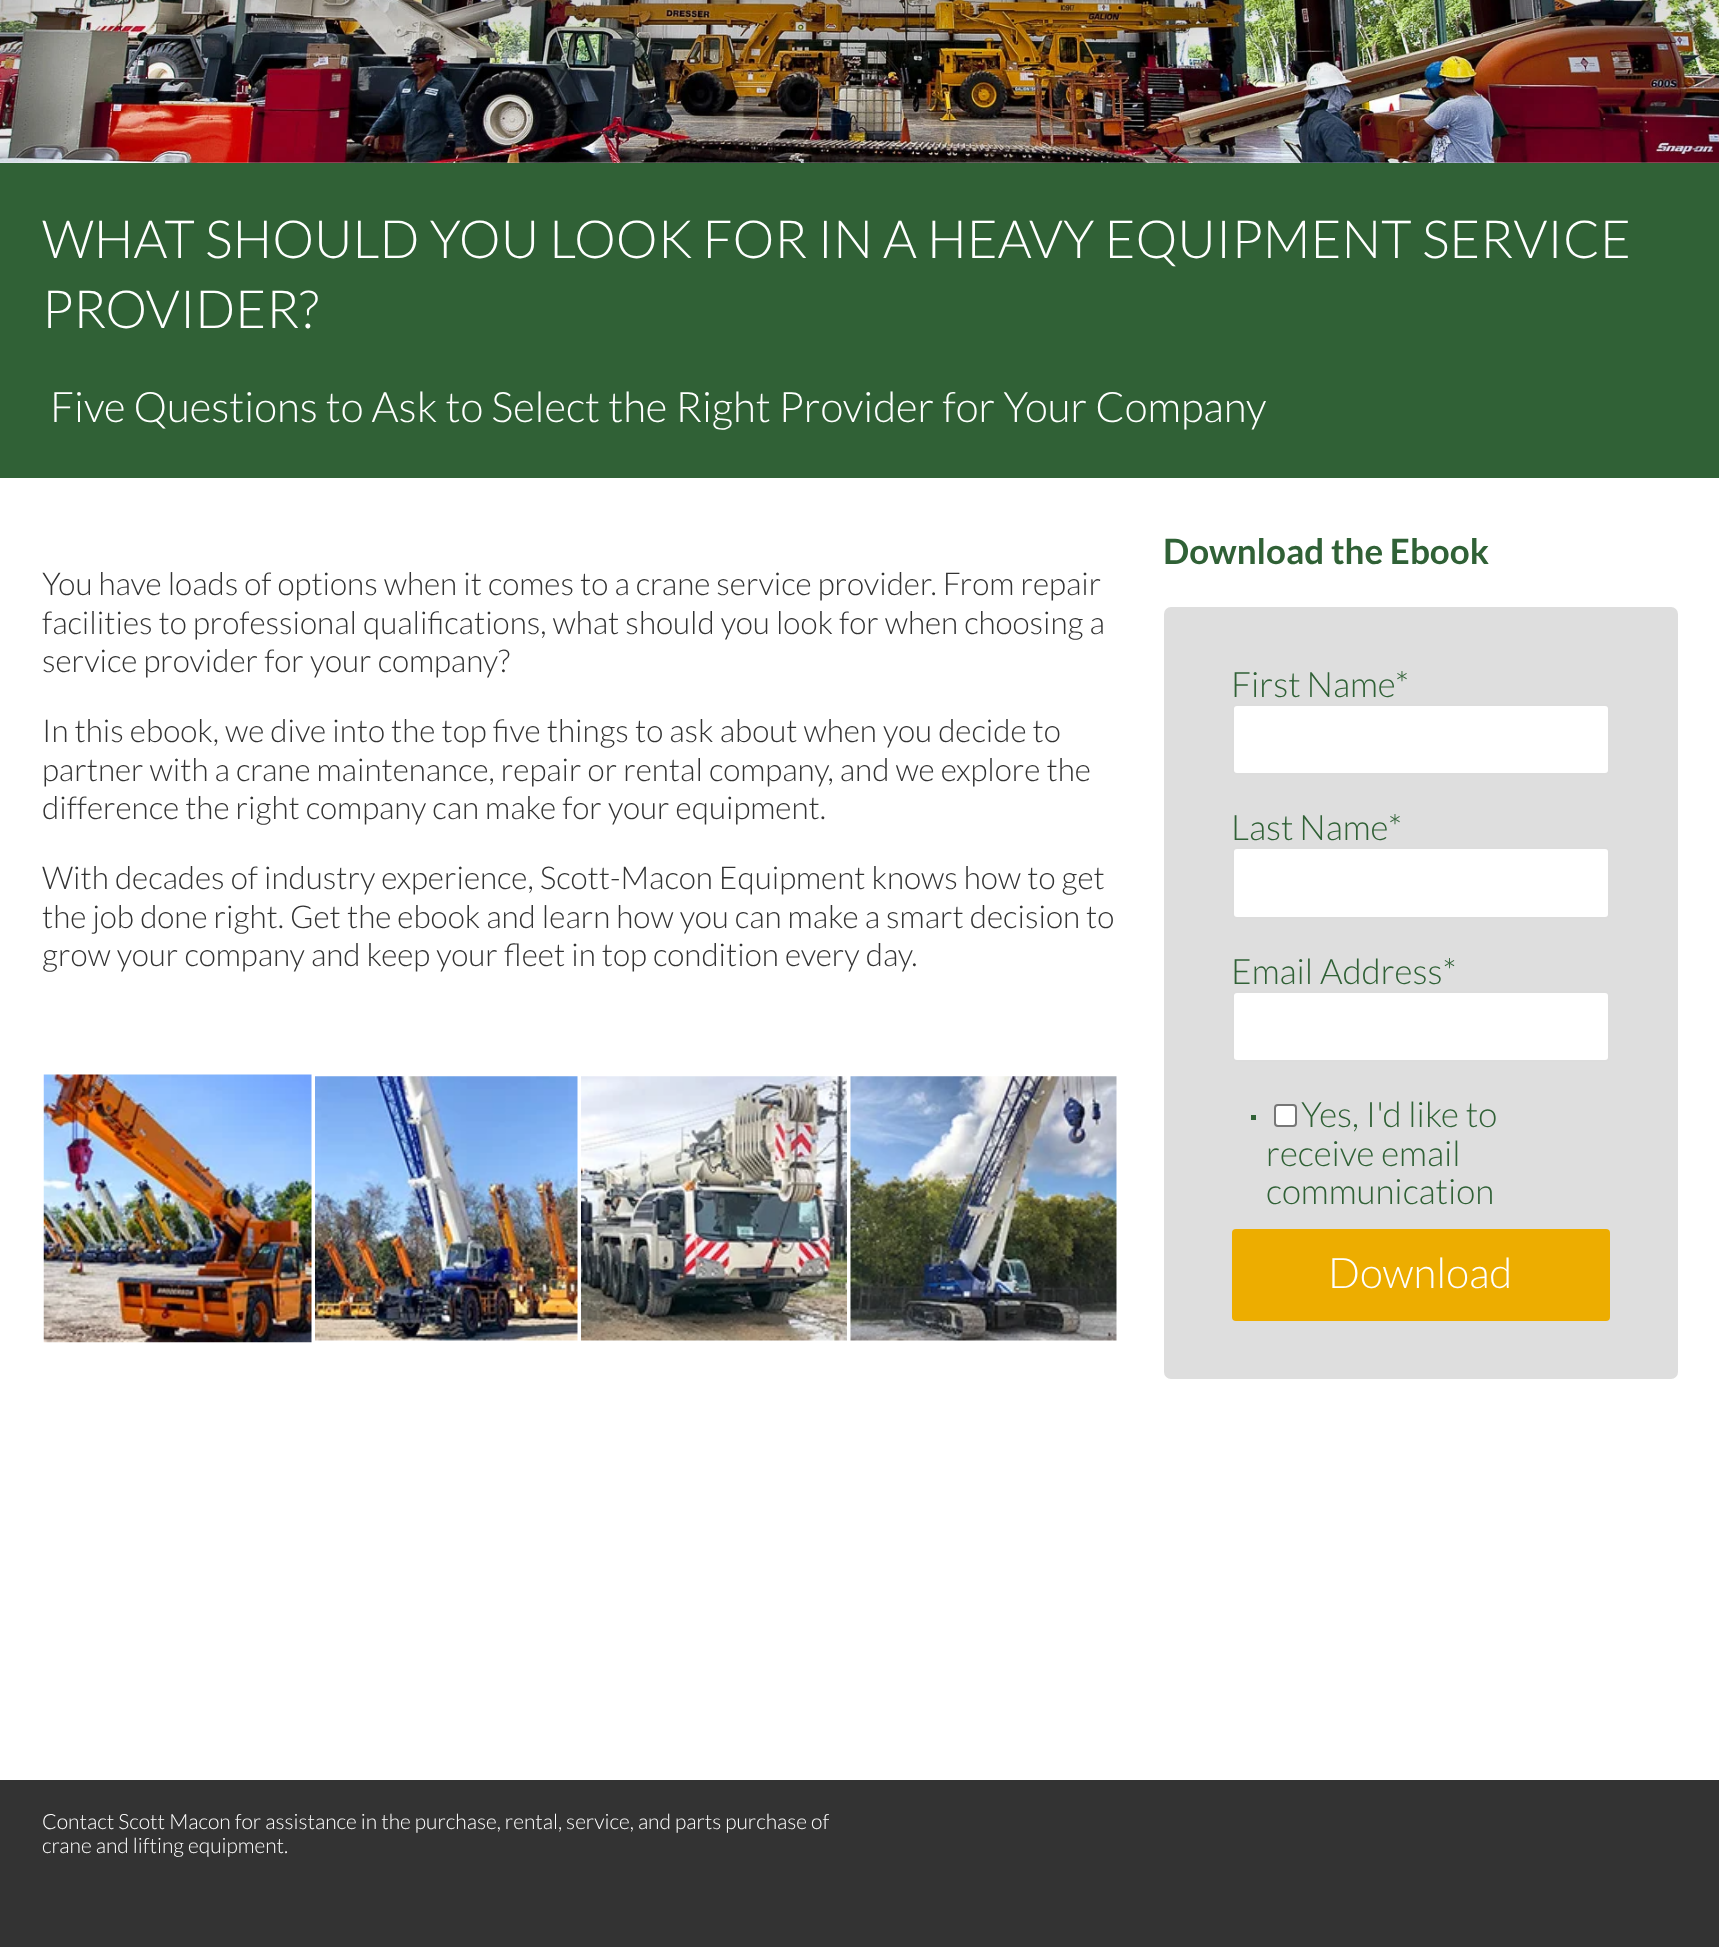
<svg xmlns="http://www.w3.org/2000/svg" width="1719" height="1947" viewBox="0 0 1719 1947">
  <style>
    .t1 { font: 300 52.5px Lato; fill: #fff; }
    .t2 { font: 300 42px Lato; fill: #fff; }
    .t3 { font: 300 31.5px Lato; fill: #333; }
    .t4 { font: bold 35px Lato; fill: #306136; }
    .t5 { font: 300 35px Lato; fill: #306136; }
    .t6 { font: 300 21px Lato; fill: #fff; }
  </style>
  <rect width="100%" height="100%" fill="#fff"/>
  <image x="0" y="0" width="1719" height="163" href="images/1.png"/>
  <rect x="0" y="163" width="1719" height="315" fill="#306136"/>
  <text x="42" y="258" class="t1">WHAT SHOULD YOU LOOK FOR IN A HEAVY EQUIPMENT SERVICE</text>
  <text x="42" y="328" class="t1">PROVIDER?</text>
  <text x="50" y="422" class="t2">Five Questions to Ask to Select the Right Provider for Your Company</text>
  <text x="42" y="595" class="t3">You have loads of options when it comes to a crane service provider. From repair</text>
  <text x="42" y="634" class="t3">facilities to professional qualifications, what should you look for when choosing a</text>
  <text x="42" y="672" class="t3">service provider for your company?</text>
  <text x="42" y="742" class="t3">In this ebook, we dive into the top five things to ask about when you decide to</text>
  <text x="42" y="781" class="t3">partner with a crane maintenance, repair or rental company, and we explore the</text>
  <text x="42" y="819" class="t3">difference the right company can make for your equipment.</text>
  <text x="42" y="889" class="t3">With decades of industry experience, Scott-Macon Equipment knows how to get</text>
  <text x="42" y="928" class="t3">the job done right. Get the ebook and learn how you can make a smart decision to</text>
  <text x="42" y="966" class="t3">grow your company and keep your fleet in top condition every day.</text>
  <image x="43" y="1074" width="269" height="269" href="images/2.png"/>
  <image x="315" y="1076" width="263" height="265" href="images/3.png"/>
  <image x="581" y="1076" width="266" height="265" href="images/4.png"/>
  <image x="850" y="1076" width="267" height="265" href="images/5.png"/>
  <text x="1163" y="564" class="t4">Download the Ebook</text>
  <rect x="1164" y="607" width="514" height="772" rx="7" fill="#dedede"/>
  <text x="1231" y="697" word-spacing="-1" class="t5">First Name</text>
  <text x="1395" y="697" class="t5">*</text>
  <rect x="1233" y="705" width="376" height="69" rx="4" fill="#fff" stroke="#ddd" stroke-width="2"/>
  <text x="1231" y="840" word-spacing="-1" class="t5">Last Name</text>
  <text x="1388" y="840" class="t5">*</text>
  <rect x="1233" y="848" width="376" height="70" rx="4" fill="#fff" stroke="#ddd" stroke-width="2"/>
  <text x="1231" y="984" class="t5">Email Address*</text>
  <rect x="1233" y="992" width="376" height="69" rx="4" fill="#fff" stroke="#ddd" stroke-width="2"/>
  <rect x="1251" y="1115" width="5" height="5" fill="#306136"/>
  <rect x="1275" y="1105" width="21" height="21" rx="3" fill="#fff" stroke="#767676" stroke-width="2"/>
  <text x="1301" y="1127" class="t5">Yes, I'd like to</text>
  <text x="1266" y="1166" class="t5">receive email</text>
  <text x="1266" y="1204" class="t5">communication</text>
  <rect x="1232" y="1229" width="378" height="92" rx="4" fill="#edad00"/>
  <text x="1328" y="1288" class="t2">Download</text>
  <rect x="0" y="1780" width="1719" height="167" fill="#333"/>
  <text x="42" y="1829" class="t6">Contact Scott Macon for assistance in the purchase, rental, service, and parts purchase of</text>
  <text x="42" y="1853" class="t6">crane and lifting equipment.</text>
</svg>
